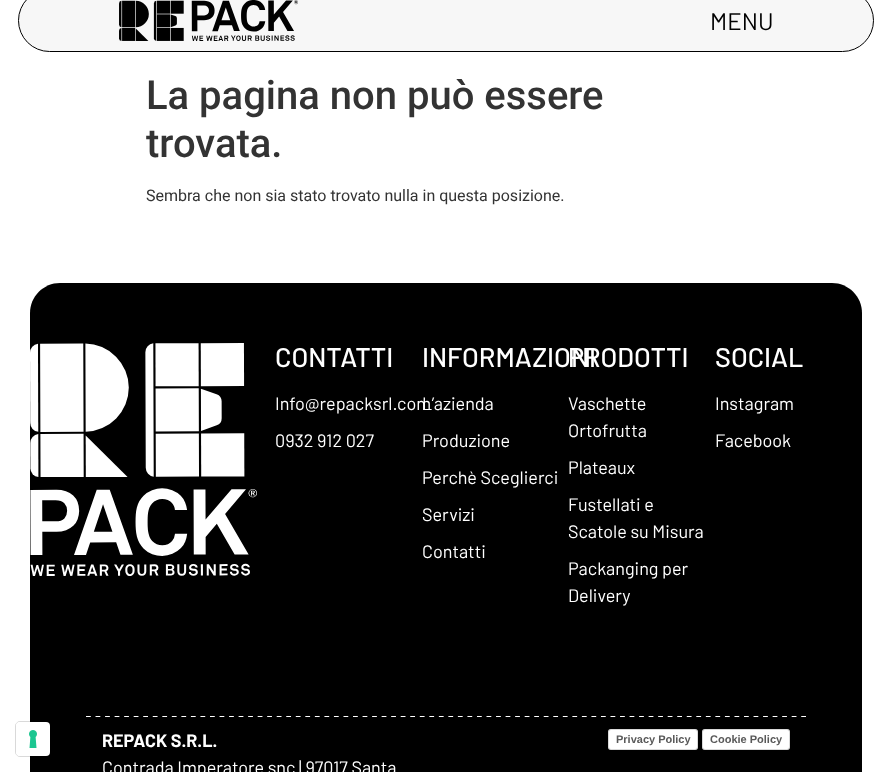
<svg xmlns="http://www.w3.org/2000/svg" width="892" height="772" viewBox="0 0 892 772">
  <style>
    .t1 { font: 24px Barlow; fill: #000; }
    .t2 { font: 500 40px Roboto; fill: #333; }
    .t3 { font: 16px Roboto; fill: #333; }
    .t4 { font: 500 27px Barlow; fill: #fff; }
    .t5 { font: 18px Barlow; fill: #fff; }
    .t6 { font: bold 18px Barlow; fill: #fff; }
    .t7 { font: bold 11px Liberation Sans; fill: #595959; }
  </style>
  <rect width="100%" height="100%" fill="#fff"/>
  <rect x="18.5" y="-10.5" width="855" height="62" rx="31" fill="#f7f7f7" stroke="#000"/>
  <image x="119" y="0" width="179" height="41" href="images/1.png"/>
  <text x="710" y="30" class="t1">MENU</text>
  <text x="146" y="109" class="t2">La pagina non può essere</text>
  <text x="146" y="157" class="t2">trovata.</text>
  <text x="146" y="201" class="t3">Sembra che non sia stato trovato nulla in questa posizione.</text>
  <rect x="30" y="707" width="832" height="65" fill="#000"/>
  <rect x="15.5" y="721.5" width="35" height="35" rx="4.5" fill="none" stroke="#00000026"/>
  <rect x="16" y="722" width="34" height="34" rx="4" fill="#fff"/>
  <image x="29" y="730" width="8" height="18" href="images/2.png"/>
  <path d="M60 283H832C848.5 283 862 296.5 862 313V707H30V313C30 296.5 43.5 283 60 283Z" fill="#000"/>
  <image x="30" y="343" width="227" height="233" href="images/3.png"/>
  <text x="275" y="367" class="t4">CONTATTI</text>
  <text x="275" y="410" class="t5">Info@repacksrl.com</text>
  <text x="275" y="447" class="t5">0932 912 027</text>
  <text x="422" y="367" class="t4">INFORMAZIONI</text>
  <text x="422" y="410" class="t5">L’azienda</text>
  <text x="422" y="447" class="t5">Produzione</text>
  <text x="422" y="484" class="t5">Perchè Sceglierci</text>
  <text x="422" y="521" class="t5">Servizi</text>
  <text x="422" y="558" class="t5">Contatti</text>
  <text x="568" y="367" class="t4">PRODOTTI</text>
  <text x="568" y="410" class="t5">Vaschette</text>
  <text x="568" y="437" class="t5">Ortofrutta</text>
  <text x="568" y="474" class="t5">Plateaux</text>
  <text x="568" y="511" class="t5">Fustellati e</text>
  <text x="568" y="538" class="t5">Scatole su Misura</text>
  <text x="568" y="575" class="t5">Packanging per</text>
  <text x="568" y="602" class="t5">Delivery</text>
  <text x="715" y="367" class="t4">SOCIAL</text>
  <text x="715" y="410" class="t5">Instagram</text>
  <text x="715" y="447" class="t5">Facebook</text>
  <image x="86" y="716" width="720" height="1" href="images/4.png"/>
  <text x="102" y="747" class="t6">REPACK S.R.L.</text>
  <text x="102" y="774" class="t5">Contrada Imperatore snc | 97017 Santa</text>
  <rect x="608" y="729" width="90" height="21" rx="3" fill="#fff"/>
  <rect x="608.5" y="729.5" width="89" height="20" rx="2.5" fill="none" stroke="#00000026"/>
  <text x="616" y="743" class="t7">Privacy Policy</text>
  <rect x="702" y="729" width="88" height="21" rx="3" fill="#fff"/>
  <rect x="702.5" y="729.5" width="87" height="20" rx="2.5" fill="none" stroke="#00000026"/>
  <text x="710" y="743" class="t7">Cookie Policy</text>
</svg>
